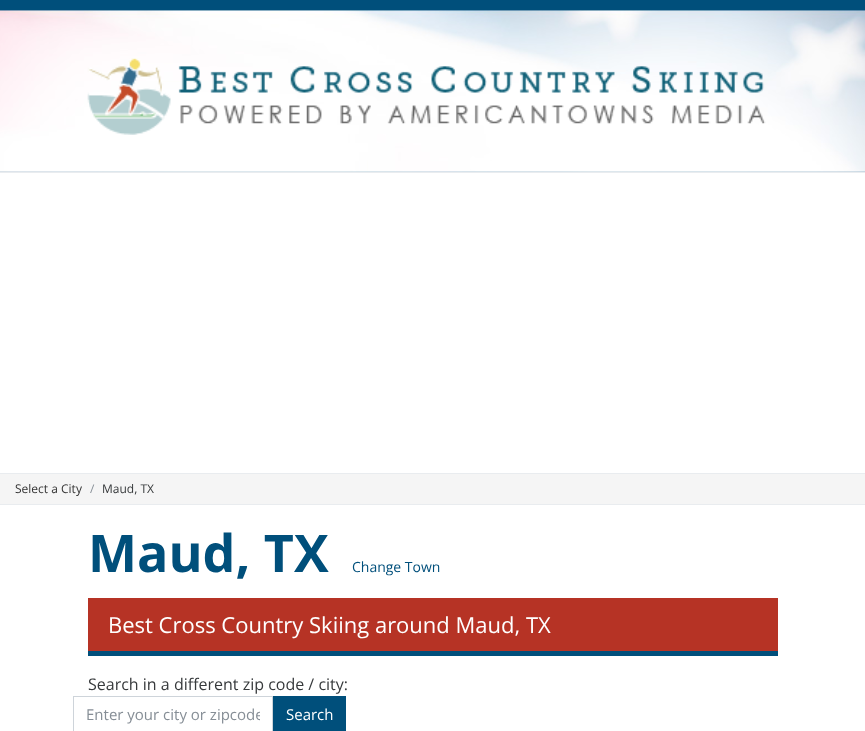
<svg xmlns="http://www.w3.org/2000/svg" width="865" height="731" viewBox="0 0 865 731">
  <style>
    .t1 { font: 12px Open Sans; fill: #333; }
    .t2 { font: 12px Open Sans; fill: #868e96; }
    .t3 { font: 12px Open Sans; fill: #373a3c; }
    .t4 { font: bold 52px Open Sans; fill: #004f7b; }
    .t5 { font: 14px Open Sans; fill: #004f7b; }
    .t6 { font: 22px Open Sans; fill: #fff; }
    .t7 { font: 16px Open Sans; fill: #373a3c; }
    .t8 { font: 15px Open Sans; fill: #868e96; }
    .t9 { font: 15px Open Sans; fill: #fff; }
  </style>
  <defs>
    <clipPath id="clip1"><rect x="86" y="704" width="174" height="20"/></clipPath>
  </defs>
  <rect width="100%" height="100%" fill="#fff"/>
  <rect x="0" y="0" width="865" height="10" fill="#004f7b"/>
  <image x="0" y="10" width="865" height="162" href="images/1.png"/>
  <rect x="0" y="172" width="865" height="1" fill="#e9ecef"/>
  <image x="87" y="58" width="679" height="77" href="images/2.png"/>
  <rect x="0" y="474" width="865" height="30" fill="#f5f5f5"/>
  <rect x="0" y="473" width="865" height="1" fill="#e9ecef"/>
  <rect x="0" y="504" width="865" height="1" fill="#e9ecef"/>
  <text x="15" y="493" class="t1">Select a City</text>
  <text x="90" y="493" class="t2">/</text>
  <text x="102" y="493" class="t3">Maud, TX</text>
  <text x="88" y="572" class="t4">Maud, TX</text>
  <text x="352" y="572" class="t5">Change Town</text>
  <rect x="88" y="598" width="690" height="53" fill="#b63325"/>
  <rect x="88" y="651" width="690" height="5" fill="#004f7b"/>
  <text x="108" y="633" class="t6">Best Cross Country Skiing around Maud, TX</text>
  <text x="88" y="690" class="t7">Search in a different zip code / city:</text>
  <rect x="73.5" y="696.5" width="199" height="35" fill="none" stroke="#ced4da"/>
  <g clip-path="url(#clip1)">
    <text x="86" y="720" class="t8">Enter your city or zipcode</text>
  </g>
  <rect x="273" y="696" width="73" height="35" fill="#004f7b"/>
  <text x="286" y="720" class="t9">Search</text>
</svg>
